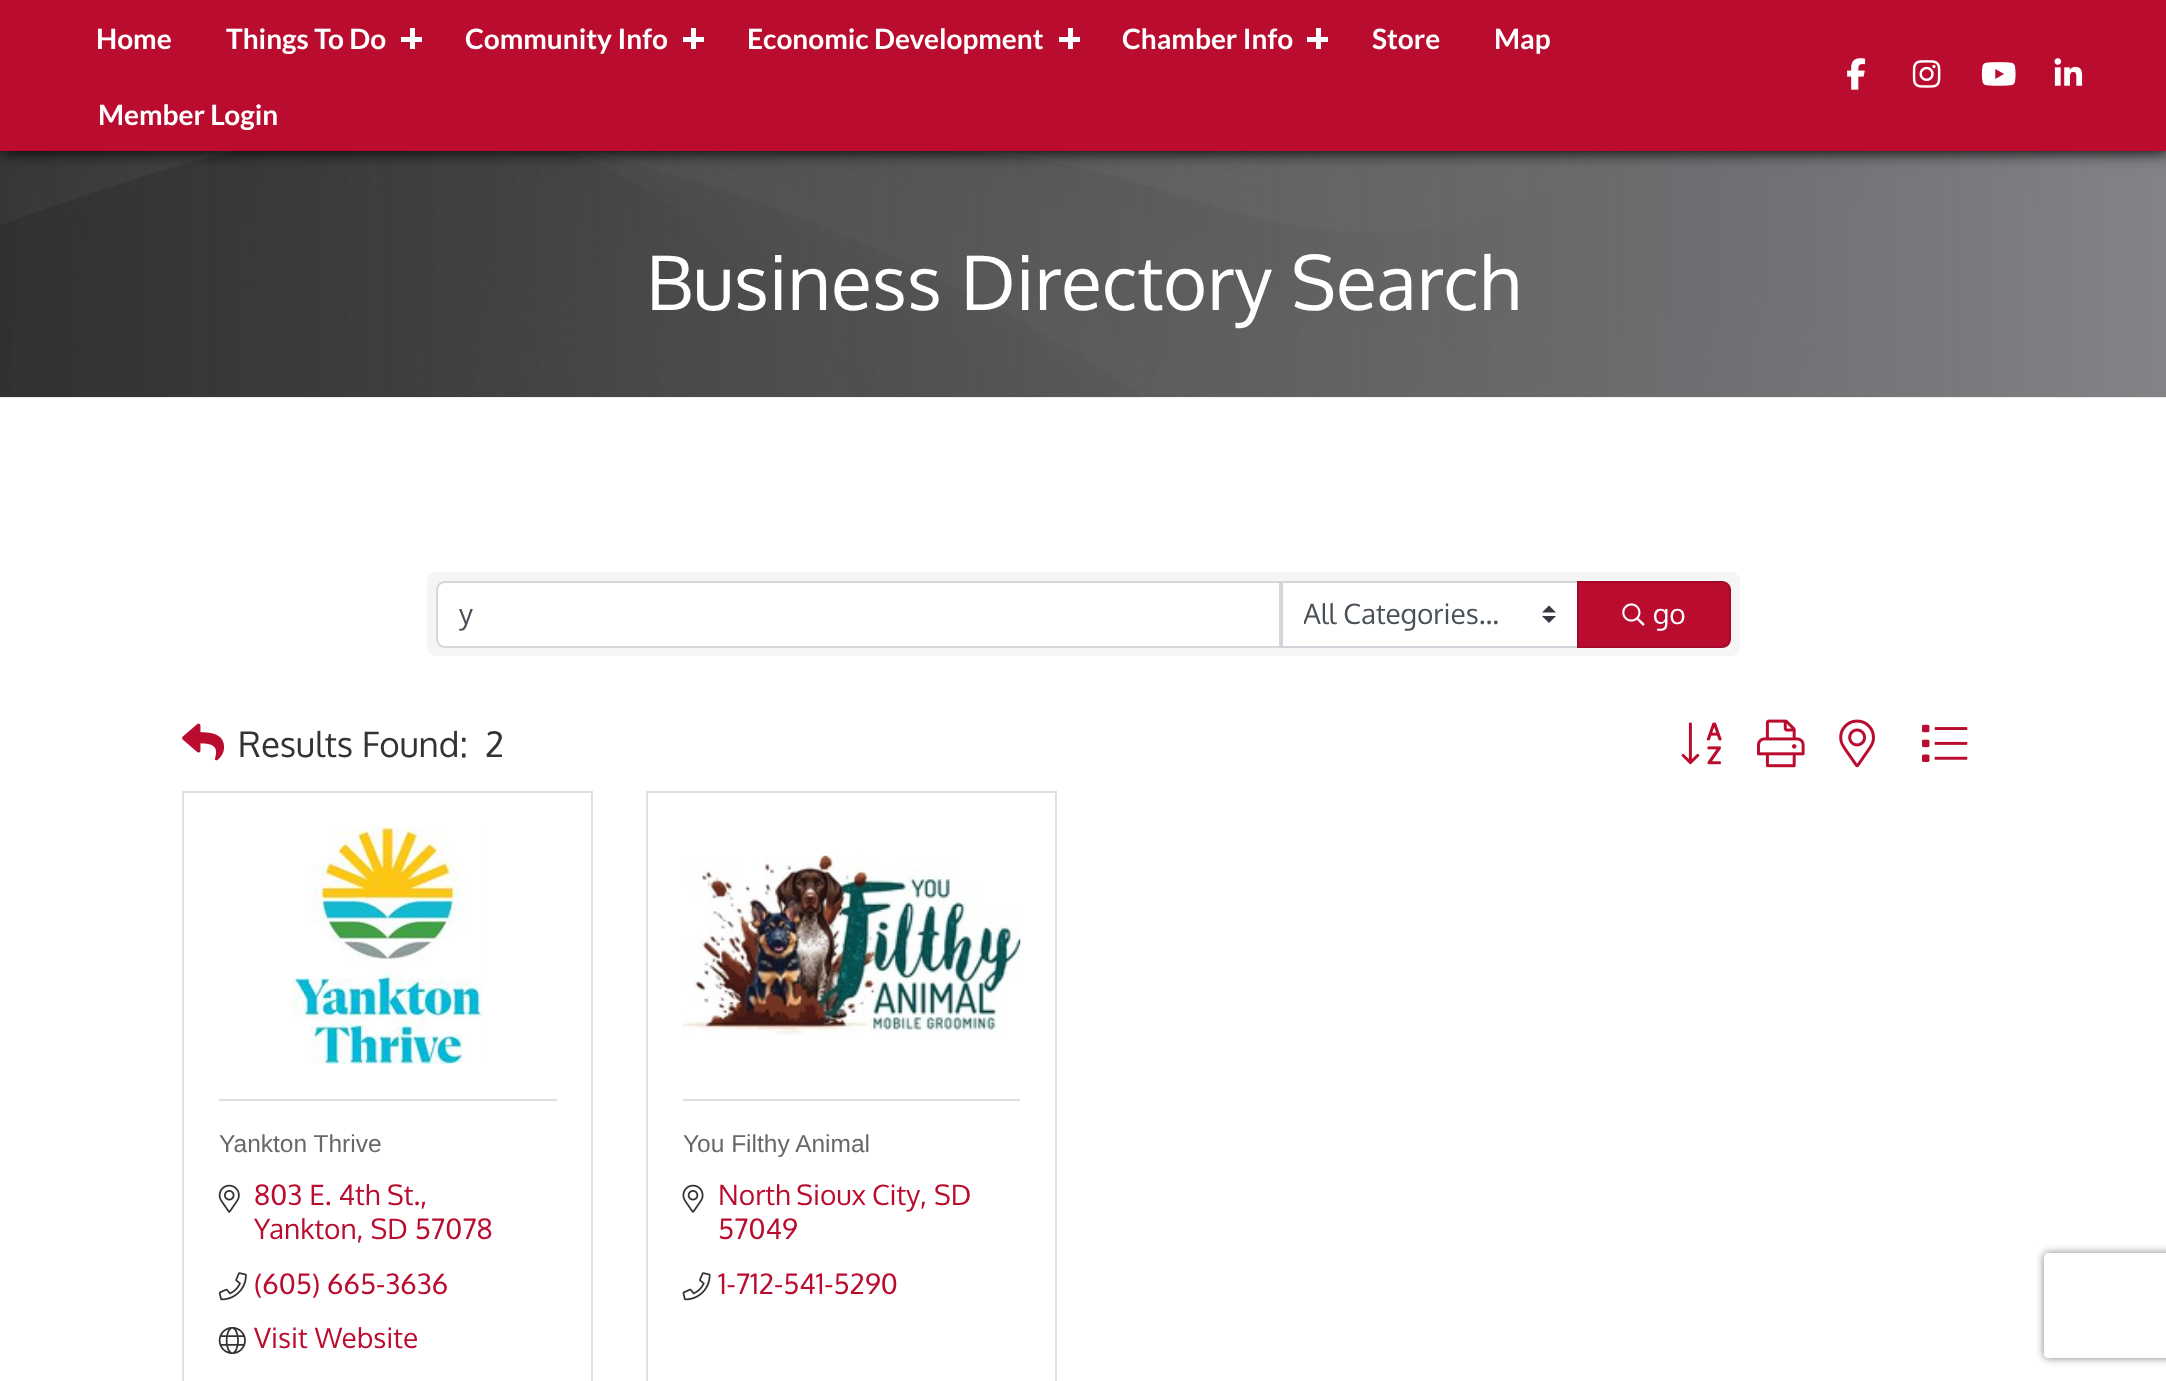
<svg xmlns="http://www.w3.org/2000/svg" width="2166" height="1381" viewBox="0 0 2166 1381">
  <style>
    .t1 { font: bold 28px Lato; fill: #fff; }
    .t2 { font: 75.25px Oxygen; fill: #fff; }
    .t3 { font: 28px Oxygen; fill: #495057; }
    .t4 { font: 28px Oxygen; fill: #fff; }
    .t5 { font: 35px Oxygen; fill: #333; }
    .t6 { font: 24.5px Liberation Sans; fill: #686868; }
    .t7 { font: 28px Oxygen; fill: #ba0c2f; }
  </style>
  <defs>
    <clipPath id="clip1"><rect x="459" y="597" width="799" height="35"/></clipPath>
    <clipPath id="clip2"><rect x="1304" y="593" width="224" height="42"/></clipPath>
    <clipPath id="clip3"><path d="M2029 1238H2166V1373H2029ZM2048 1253H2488C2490 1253 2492 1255 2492 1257V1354C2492 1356 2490 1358 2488 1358H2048C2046 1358 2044 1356 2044 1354V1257C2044 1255 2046 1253 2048 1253Z" clip-rule="evenodd"/></clipPath>
  </defs>
  <rect width="100%" height="100%" fill="#fff"/>
  <image x="0" y="151" width="2166" height="247" href="images/5.png"/>
  <rect x="2" y="2" width="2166" height="150" fill="#000" filter="blur(8px)"/>
  <rect x="0" y="0" width="2166" height="151" fill="#ba0c2f"/>
  <text x="96" y="49" class="t1">Home</text>
  <text x="226" y="49" class="t1">Things To Do</text>
  <rect x="401" y="37" width="21" height="5" fill="#fff"/>
  <rect x="410" y="28" width="5" height="21" fill="#fff"/>
  <text x="465" y="49" class="t1">Community Info</text>
  <rect x="683" y="37" width="21" height="5" fill="#fff"/>
  <rect x="691" y="28" width="5" height="21" fill="#fff"/>
  <text x="747" y="49" class="t1">Economic Development</text>
  <rect x="1059" y="37" width="21" height="5" fill="#fff"/>
  <rect x="1068" y="28" width="5" height="21" fill="#fff"/>
  <text x="1122" y="49" class="t1">Chamber Info</text>
  <rect x="1307" y="37" width="21" height="5" fill="#fff"/>
  <rect x="1316" y="28" width="5" height="21" fill="#fff"/>
  <text x="1372" y="49" class="t1">Store</text>
  <text x="1494" y="49" class="t1">Map</text>
  <text x="98" y="125" class="t1">Member Login</text>
  <image x="1847" y="58" width="19" height="32" href="images/1.png"/>
  <image x="1912" y="60" width="29" height="28" href="images/2.png"/>
  <image x="1981" y="62" width="35" height="24" href="images/3.png"/>
  <image x="2054" y="58" width="29" height="28" href="images/4.png"/>
  <text x="646" y="310" class="t2">Business Directory Search</text>
  <rect x="427" y="572" width="1313" height="84" rx="9" fill="#f5f5f5"/>
  <path d="M445 583H1279V646H445C441 646 438 643 438 639V590C438 586 441 583 445 583Z" fill="#fff"/>
  <path d="M445 582H1280V647H445C440.5 647 437 643.5 437 639V590C437 585.5 440.5 582 445 582Z" fill="none" stroke="#0000001f" stroke-width="2"/>
  <g clip-path="url(#clip1)">
    <text x="459" y="624" class="t3">y</text>
  </g>
  <rect x="1283" y="583" width="294" height="63" fill="#fff"/>
  <path d="M1549 605.5L1542 612.5H1556ZM1549 623L1542 616H1556Z" fill="#343a40"/>
  <rect x="1282" y="582" width="296" height="65" fill="none" stroke="#ced4da" stroke-width="2"/>
  <g clip-path="url(#clip2)">
    <text x="1303" y="624" class="t3">All Categories...</text>
  </g>
  <path d="M1577 581H1722C1727 581 1731 585 1731 590V639C1731 644 1727 648 1722 648H1577Z" fill="#ba0c2f"/>
  <path d="M1578 582H1722C1726.5 582 1730 585.5 1730 590V639C1730 643.5 1726.5 647 1722 647H1578Z" fill="none" stroke="#0000001f" stroke-width="2"/>
  <image x="1622" y="603" width="23" height="23" href="images/6.png"/>
  <text x="1653" y="624" class="t4">go</text>
  <image x="182" y="723" width="43" height="38" href="images/7.png"/>
  <text x="238" y="757" class="t5">Results Found:</text>
  <text x="485" y="757" class="t5">2</text>
  <image x="1681" y="722" width="41" height="43" href="images/8.png"/>
  <image x="1757" y="719" width="48" height="49" href="images/9.png"/>
  <image x="1839" y="719" width="36" height="49" href="images/10.png"/>
  <image x="1922" y="724" width="46" height="38" href="images/11.png"/>
  <rect x="183" y="792" width="409" height="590" fill="none" stroke="#dfdfdf" stroke-width="2"/>
  <image x="292" y="827" width="191" height="237" href="images/12.png"/>
  <rect x="219" y="1099" width="338" height="2" fill="#dfdfdf"/>
  <text x="219" y="1152" class="t6">Yankton Thrive</text>
  <image x="218" y="1184" width="22" height="29" href="images/13.png"/>
  <text x="254" y="1205" class="t7">803 E. 4th St.,</text>
  <text x="254" y="1239" class="t7">Yankton, SD 57078</text>
  <image x="218" y="1272" width="29" height="29" href="images/14.png"/>
  <text x="254" y="1294" class="t7">(605) 665-3636</text>
  <image x="218" y="1326" width="28" height="29" href="images/15.png"/>
  <text x="254" y="1348" class="t7">Visit Website</text>
  <rect x="647" y="792" width="409" height="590" fill="none" stroke="#dfdfdf" stroke-width="2"/>
  <image x="682" y="855" width="339" height="181" href="images/16.png"/>
  <rect x="683" y="1099" width="337" height="2" fill="#dfdfdf"/>
  <text x="683" y="1152" class="t6">You Filthy Animal</text>
  <image x="682" y="1184" width="22" height="29" href="images/17.png"/>
  <text x="718" y="1205" word-spacing="-1" class="t7">North Sioux City</text>
  <text x="920" y="1205" class="t7">, SD</text>
  <text x="718" y="1239" class="t7">57049</text>
  <image x="682" y="1272" width="29" height="29" href="images/18.png"/>
  <text x="718" y="1294" class="t7">1-712-541-5290</text>
  <g clip-path="url(#clip3)">
    <rect x="2044" y="1253" width="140" height="105" rx="4" fill="#808080" filter="blur(4.5px)"/>
  </g>
</svg>
